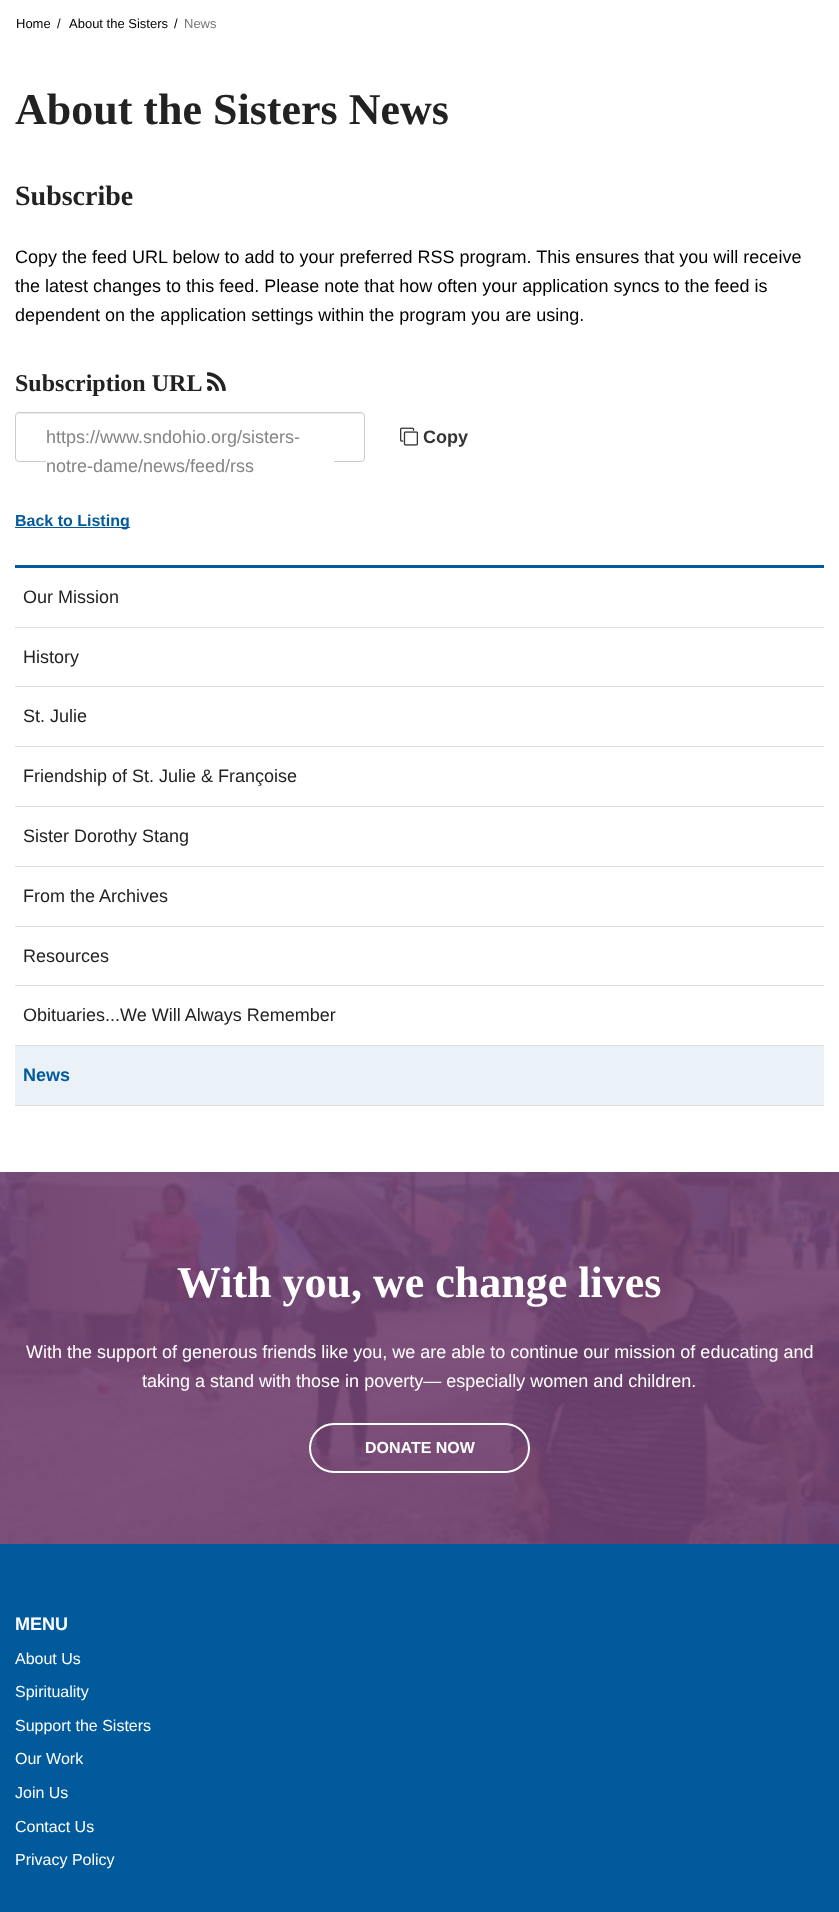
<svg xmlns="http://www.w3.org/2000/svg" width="839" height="1912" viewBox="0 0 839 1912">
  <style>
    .t1 { font: 13px Liberation Sans; fill: #000; }
    .t2 { font: 13px Liberation Sans; fill: #767676; }
    .t3 { font: bold 44px Liberation Serif; fill: #222; }
    .t4 { font: bold 28px Liberation Serif; fill: #222; }
    .t5 { font: 18px Liberation Sans; fill: #000; }
    .t6 { font: bold 24px Liberation Serif; fill: #222; }
    .t7 { font: 18px Liberation Sans; fill: #858585; }
    .t8 { font: bold 18px Liberation Sans; fill: #333; }
    .t9 { font: bold 16px Liberation Sans; fill: #005a9c; }
    .t10 { font: 18px Liberation Sans; fill: #222; }
    .t11 { font: bold 18px Liberation Sans; fill: #005a9c; }
    .t12 { font: bold 44px Liberation Serif; fill: #fff; }
    .t13 { font: 18px Liberation Sans; fill: #fff; }
    .t14 { font: bold 16px Liberation Sans; fill: #fff; }
    .t15 { font: bold 18px Liberation Sans; fill: #fff; }
    .t16 { font: 16px Liberation Sans; fill: #fff; }
  </style>
  <rect width="100%" height="100%" fill="#fff"/>
  <text x="16" y="28" class="t1">Home</text>
  <text x="57" y="28" class="t1">/</text>
  <text x="69" y="28" class="t1">About the Sisters</text>
  <text x="174" y="28" class="t1">/</text>
  <text x="184" y="28" class="t2">News</text>
  <text x="15" y="124" class="t3">About the Sisters News</text>
  <text x="15" y="205" class="t4">Subscribe</text>
  <text x="15" y="263" class="t5">Copy the feed URL below to add to your preferred RSS program. This ensures that you will receive</text>
  <text x="15" y="292" class="t5">the latest changes to this feed. Please note that how often your application syncs to the feed is</text>
  <text x="15" y="321" class="t5">dependent on the application settings within the program you are using.</text>
  <text x="15" y="391" class="t6">Subscription URL</text>
  <image x="207" y="372" width="19" height="19" href="images/1.png"/>
  <path d="M19 414H361C363 414 364 415 364 417C364 415 363 413 361 413H19L17 414L16 417C16 415 17 414 19 414Z" fill="#ececec"/>
  <rect x="15.5" y="412.5" width="349" height="49" rx="3.5" fill="none" stroke="#ccc"/>
  <rect x="46" y="461" width="288" height="1" fill="#fff"/>
  <text x="46" y="443" class="t7">https://www.sndohio.org/sisters-</text>
  <text x="46" y="472" class="t7">notre-dame/news/feed/rss</text>
  <image x="400" y="427" width="18" height="19" href="images/2.png"/>
  <text x="423" y="443" class="t8">Copy</text>
  <rect x="15" y="527" width="115" height="1" fill="#005a9c"/>
  <text x="15" y="526" class="t9">Back to Listing</text>
  <rect x="15" y="565" width="809" height="3" fill="#005a9c"/>
  <rect x="15" y="627" width="809" height="1" fill="#ddd"/>
  <text x="23" y="603" class="t10">Our Mission</text>
  <rect x="15" y="686" width="809" height="1" fill="#ddd"/>
  <text x="23" y="663" class="t10">History</text>
  <rect x="15" y="746" width="809" height="1" fill="#ddd"/>
  <text x="23" y="722" class="t10">St. Julie</text>
  <rect x="15" y="806" width="809" height="1" fill="#ddd"/>
  <text x="23" y="782" class="t10">Friendship of St. Julie &amp; Françoise</text>
  <rect x="15" y="866" width="809" height="1" fill="#ddd"/>
  <text x="23" y="842" class="t10">Sister Dorothy Stang</text>
  <rect x="15" y="926" width="809" height="1" fill="#ddd"/>
  <text x="23" y="902" class="t10">From the Archives</text>
  <rect x="15" y="985" width="809" height="1" fill="#ddd"/>
  <text x="23" y="962" class="t10">Resources</text>
  <rect x="15" y="1045" width="809" height="1" fill="#ddd"/>
  <text x="23" y="1021" class="t10">Obituaries...We Will Always Remember</text>
  <rect x="15" y="1046" width="809" height="59" fill="#ebf2f7"/>
  <rect x="15" y="1105" width="809" height="1" fill="#ddd"/>
  <text x="23" y="1081" class="t11">News</text>
  <image x="0" y="1172" width="839" height="372" href="images/3.png"/>
  <text x="177" y="1297" class="t12">With you, we change lives</text>
  <text x="26" y="1358" class="t13">With the support of generous friends like you, we are able to continue our mission of educating and</text>
  <text x="142" y="1387" class="t13">taking a stand with those in poverty— especially women and children.</text>
  <rect x="310" y="1424" width="219" height="48" rx="24" fill="none" stroke="#fff" stroke-width="2"/>
  <text x="365" y="1453" class="t14">DONATE NOW</text>
  <rect x="0" y="1544" width="839" height="368" fill="#005a9c"/>
  <text x="15" y="1630" class="t15">MENU</text>
  <text x="15" y="1664" class="t16">About Us</text>
  <text x="15" y="1697" class="t16">Spirituality</text>
  <text x="15" y="1731" class="t16">Support the Sisters</text>
  <text x="15" y="1764" class="t16">Our Work</text>
  <text x="15" y="1798" class="t16">Join Us</text>
  <text x="15" y="1832" class="t16">Contact Us</text>
  <text x="15" y="1865" class="t16">Privacy Policy</text>
</svg>
